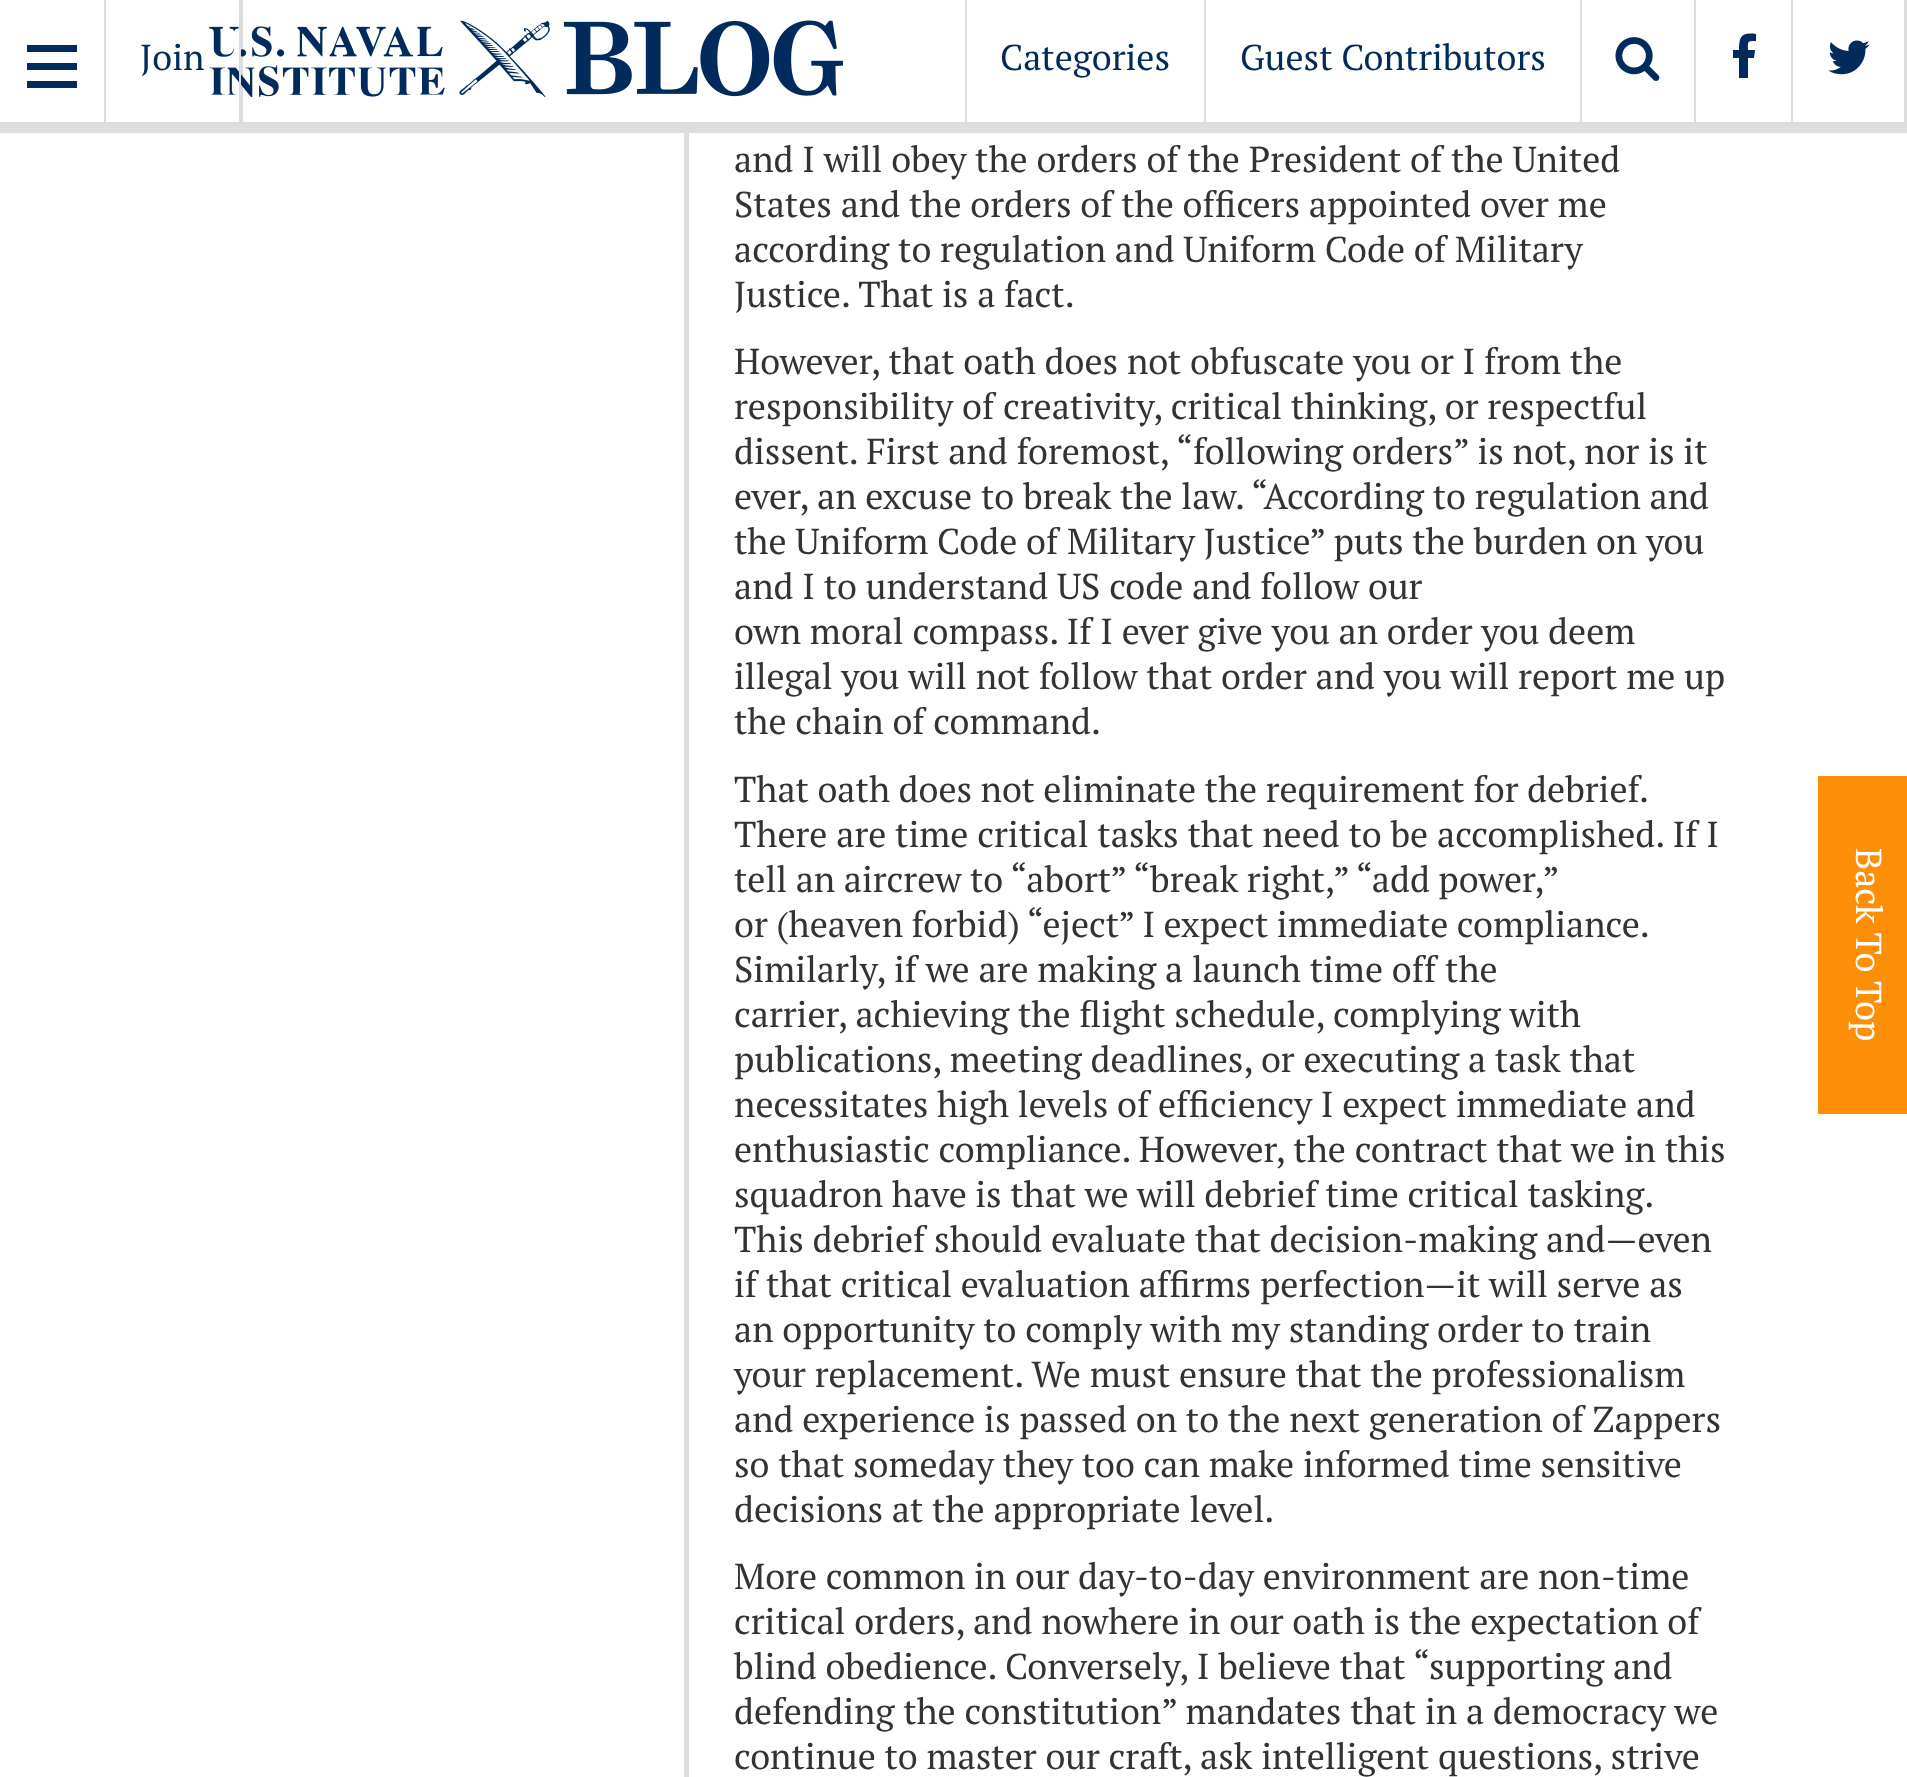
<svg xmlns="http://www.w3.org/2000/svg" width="1907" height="1777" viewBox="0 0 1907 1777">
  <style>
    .t1 { font: 36px PT Serif; fill: #002b5c; }
    .t2 { font: 36px PT Serif; fill: #333; }
    .t3 { font: 36px PT Serif; fill: #fff; }
  </style>
  <rect width="100%" height="100%" fill="#fff"/>
  <rect x="0" y="122" width="1907" height="11" fill="#ddd"/>
  <rect x="241" y="0" width="2" height="122" fill="#ddd"/>
  <rect x="104" y="0" width="2" height="122" fill="#ddd"/>
  <rect x="27" y="45" width="50" height="7" fill="#002b5c"/>
  <rect x="27" y="63" width="50" height="7" fill="#002b5c"/>
  <rect x="27" y="81" width="50" height="7" fill="#002b5c"/>
  <image x="209" y="20" width="634" height="78" href="images/1.png"/>
  <rect x="239" y="0" width="2" height="122" fill="#ddd"/>
  <text x="140" y="70" class="t1">Join</text>
  <rect x="1904" y="0" width="3" height="122" fill="#ddd"/>
  <rect x="1204" y="0" width="2" height="122" fill="#ddd"/>
  <rect x="965" y="0" width="2" height="122" fill="#ddd"/>
  <text x="1000" y="70" class="t1">Categories</text>
  <rect x="1580" y="0" width="2" height="122" fill="#ddd"/>
  <text x="1240" y="70" class="t1">Guest Contributors</text>
  <rect x="1694" y="0" width="2" height="122" fill="#ddd"/>
  <image x="1615" y="37" width="45" height="44" href="images/2.png"/>
  <rect x="1791" y="0" width="2" height="122" fill="#ddd"/>
  <path d="M1756 34V41C1747 41 1748 41 1748 50H1755L1754 58H1748V78H1739V58H1733V50H1739C1739 37 1741 32 1756 34Z" fill="#002b5c"/>
  <image x="1828" y="40" width="42" height="35" href="images/3.png"/>
  <rect x="684" y="133" width="5" height="1644" fill="#ddd"/>
  <text x="734" y="172" class="t2">and I will obey the orders of the President of the United</text>
  <text x="734" y="217" class="t2">States and the orders of the officers appointed over me</text>
  <text x="734" y="262" class="t2">according to regulation and Uniform Code of Military</text>
  <text x="734" y="307" class="t2">Justice. That is a fact.</text>
  <text x="734" y="374" class="t2">However, that oath does not obfuscate you or I from the</text>
  <text x="734" y="419" class="t2">responsibility of creativity, critical thinking, or respectful</text>
  <text x="734" y="464" class="t2">dissent. First and foremost, “following orders” is not, nor is it</text>
  <text x="734" y="509" class="t2">ever, an excuse to break the law. “According to regulation and</text>
  <text x="734" y="554" class="t2">the Uniform Code of Military Justice” puts the burden on you</text>
  <text x="734" y="599" class="t2">and I to understand US code and follow our</text>
  <text x="734" y="644" class="t2">own moral compass. If I ever give you an order you deem</text>
  <text x="734" y="689" class="t2">illegal you will not follow that order and you will report me up</text>
  <text x="734" y="734" class="t2">the chain of command.</text>
  <text x="734" y="802" word-spacing="-0.25" class="t2">That oath does not eliminate the requirement for debrief.</text>
  <text x="734" y="847" class="t2">There are time critical tasks that need to be accomplished. If I</text>
  <text x="734" y="892" word-spacing="-0.25" class="t2">tell an aircrew to “abort” “break right,” “add power,”</text>
  <text x="734" y="937" word-spacing="-0.25" class="t2">or (heaven forbid) “eject” I expect immediate compliance.</text>
  <text x="734" y="982" class="t2">Similarly, if we are making a launch time off the</text>
  <text x="734" y="1027" class="t2">carrier, achieving the flight schedule, complying with</text>
  <text x="734" y="1072" class="t2">publications, meeting deadlines, or executing a task that</text>
  <text x="734" y="1117" class="t2">necessitates high levels of efficiency I expect immediate and</text>
  <text x="734" y="1162" class="t2">enthusiastic compliance. However, the contract that we in this</text>
  <text x="734" y="1207" word-spacing="-0.25" class="t2">squadron have is that we will debrief time critical tasking.</text>
  <text x="734" y="1252" class="t2">This debrief should evaluate that decision-making and—even</text>
  <text x="734" y="1297" class="t2">if that critical evaluation affirms perfection—it will serve as</text>
  <text x="734" y="1342" class="t2">an opportunity to comply with my standing order to train</text>
  <text x="734" y="1387" class="t2">your replacement. We must ensure that the professionalism</text>
  <text x="734" y="1432" class="t2">and experience is passed on to the next generation of Zappers</text>
  <text x="734" y="1477" class="t2">so that someday they too can make informed time sensitive</text>
  <text x="734" y="1522" class="t2">decisions at the appropriate level.</text>
  <text x="734" y="1589" class="t2">More common in our day-to-day environment are non-time</text>
  <text x="734" y="1634" class="t2">critical orders, and nowhere in our oath is the expectation of</text>
  <text x="734" y="1679" class="t2">blind obedience. Conversely, I believe that “supporting and</text>
  <text x="734" y="1724" class="t2">defending the constitution” mandates that in a democracy we</text>
  <text x="734" y="1769" class="t2">continue to master our craft, ask intelligent questions, strive</text>
  <rect x="1818" y="776" width="89" height="338" fill="#fd8e08"/>
  <text x="1856" y="848" transform="rotate(90 1856 848)" class="t3">Back To Top</text>
</svg>
